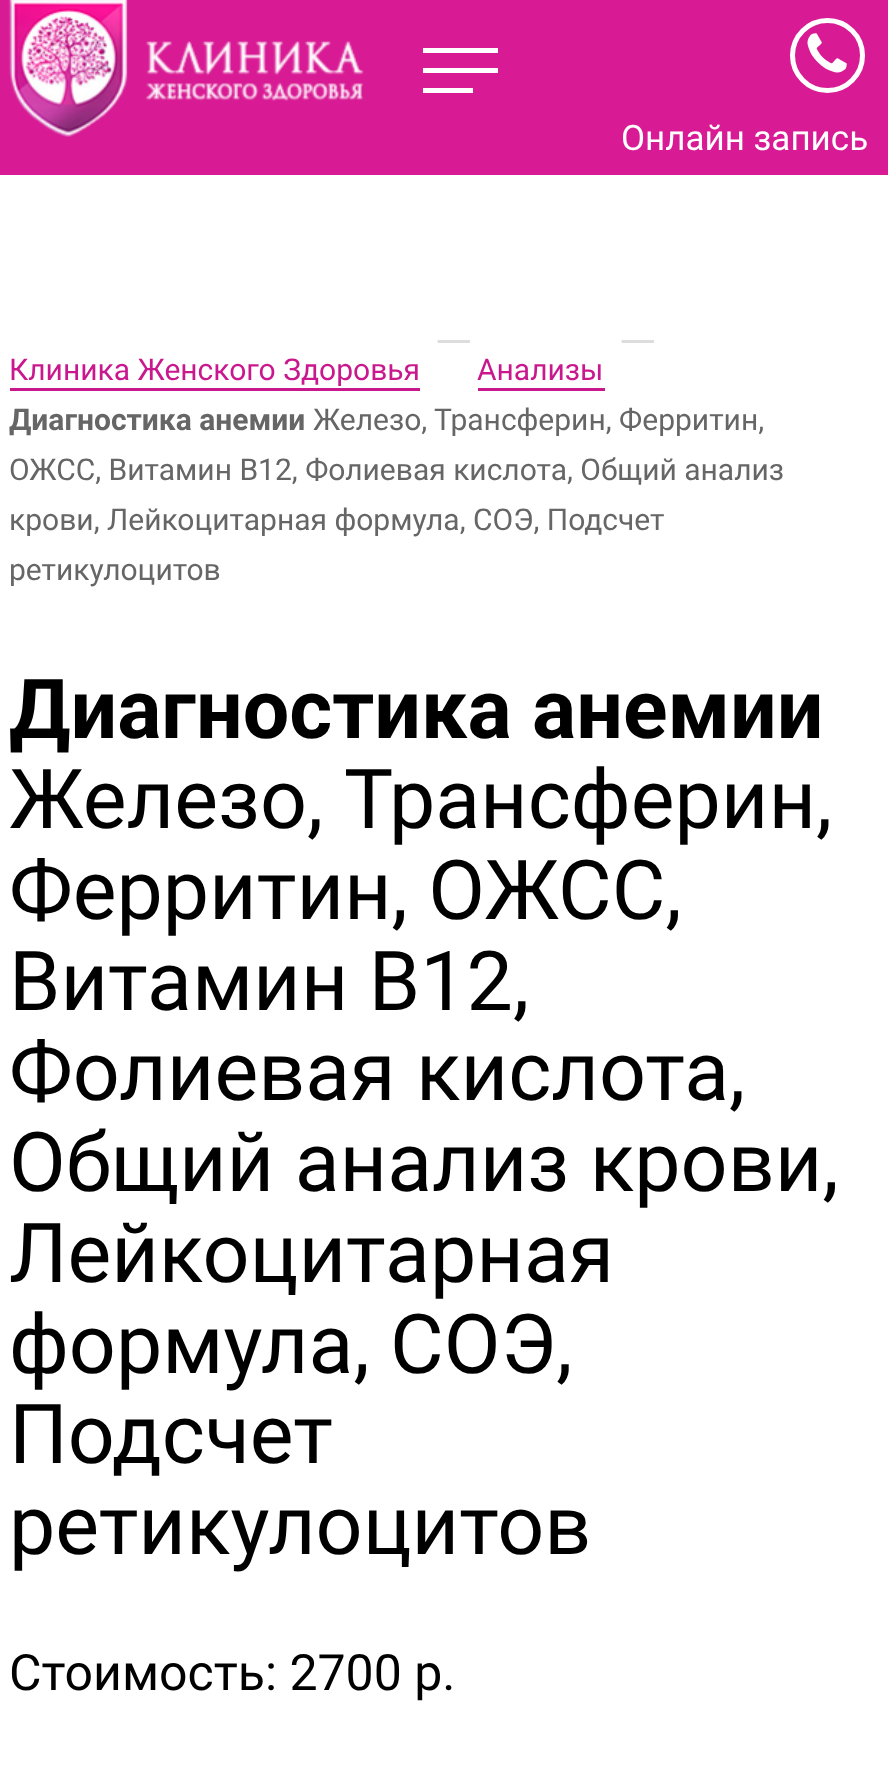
<svg xmlns="http://www.w3.org/2000/svg" width="888" height="1776" viewBox="0 0 888 1776">
  <style>
    .t1 { font: 35px Roboto; fill: #fff; }
    .t2 { font: 30px Roboto; fill: #c9188d; }
    .t3 { font: bold 30px Roboto; fill: #666; }
    .t4 { font: 30px Roboto; fill: #666; }
    .t5 { font: bold 82.5px Roboto; fill: #000; }
    .t6 { font: 82.5px Roboto; fill: #000; }
    .t7 { font: 50px Roboto; fill: #000; }
  </style>
  <rect width="100%" height="100%" fill="#fff"/>
  <rect x="0" y="0" width="888" height="175" fill="#d81b94"/>
  <rect x="423" y="68" width="75" height="5" fill="#fff"/>
  <rect x="423" y="48" width="75" height="5" fill="#fff"/>
  <rect x="423" y="88" width="50" height="5" fill="#fff"/>
  <image x="8" y="0" width="356" height="137" href="images/1.png"/>
  <circle cx="827.5" cy="55.5" r="35" fill="none" stroke="#fff" stroke-width="5"/>
  <image x="807" y="33" width="40" height="40" href="images/2.png"/>
  <text x="621" y="150" class="t1">Онлайн запись</text>
  <rect x="438" y="340" width="32" height="3" fill="#ddd"/>
  <path d="M440 340V342.5H437.5V340Z" fill="#ddd"/>
  <text x="9" y="380" class="t2">Клиника Женского Здоровья</text>
  <rect x="10" y="388" width="410" height="3" fill="#c9188d"/>
  <rect x="622" y="340" width="32" height="3" fill="#ddd"/>
  <path d="M624 340V342.5H621.5V340Z" fill="#ddd"/>
  <text x="477" y="380" class="t2">Анализы</text>
  <rect x="478" y="388" width="127" height="3" fill="#c9188d"/>
  <text x="9" y="430" class="t3">Диагностика анемии</text>
  <text x="313" y="430" class="t4">Железо, Трансферин, Ферритин,</text>
  <text x="9" y="480" class="t4">ОЖСС, Витамин В12, Фолиевая кислота, Общий анализ</text>
  <text x="9" y="530" class="t4">крови, Лейкоцитарная формула, СОЭ, Подсчет</text>
  <text x="9" y="580" class="t4">ретикулоцитов</text>
  <text x="9" y="738" class="t5">Диагностика анемии</text>
  <text x="9" y="828" word-spacing="2" class="t6">Железо, Трансферин,</text>
  <text x="9" y="919" class="t6">Ферритин, ОЖСС,</text>
  <text x="9" y="1010" class="t6">Витамин В12,</text>
  <text x="9" y="1100" class="t6">Фолиевая кислота,</text>
  <text x="9" y="1191" class="t6">Общий анализ крови,</text>
  <text x="9" y="1282" class="t6">Лейкоцитарная</text>
  <text x="9" y="1373" class="t6">формула, СОЭ,</text>
  <text x="9" y="1463" class="t6">Подсчет</text>
  <text x="9" y="1554" class="t6">ретикулоцитов</text>
  <text x="9" y="1690" class="t7">Стоимость: 2700 р.</text>
</svg>
